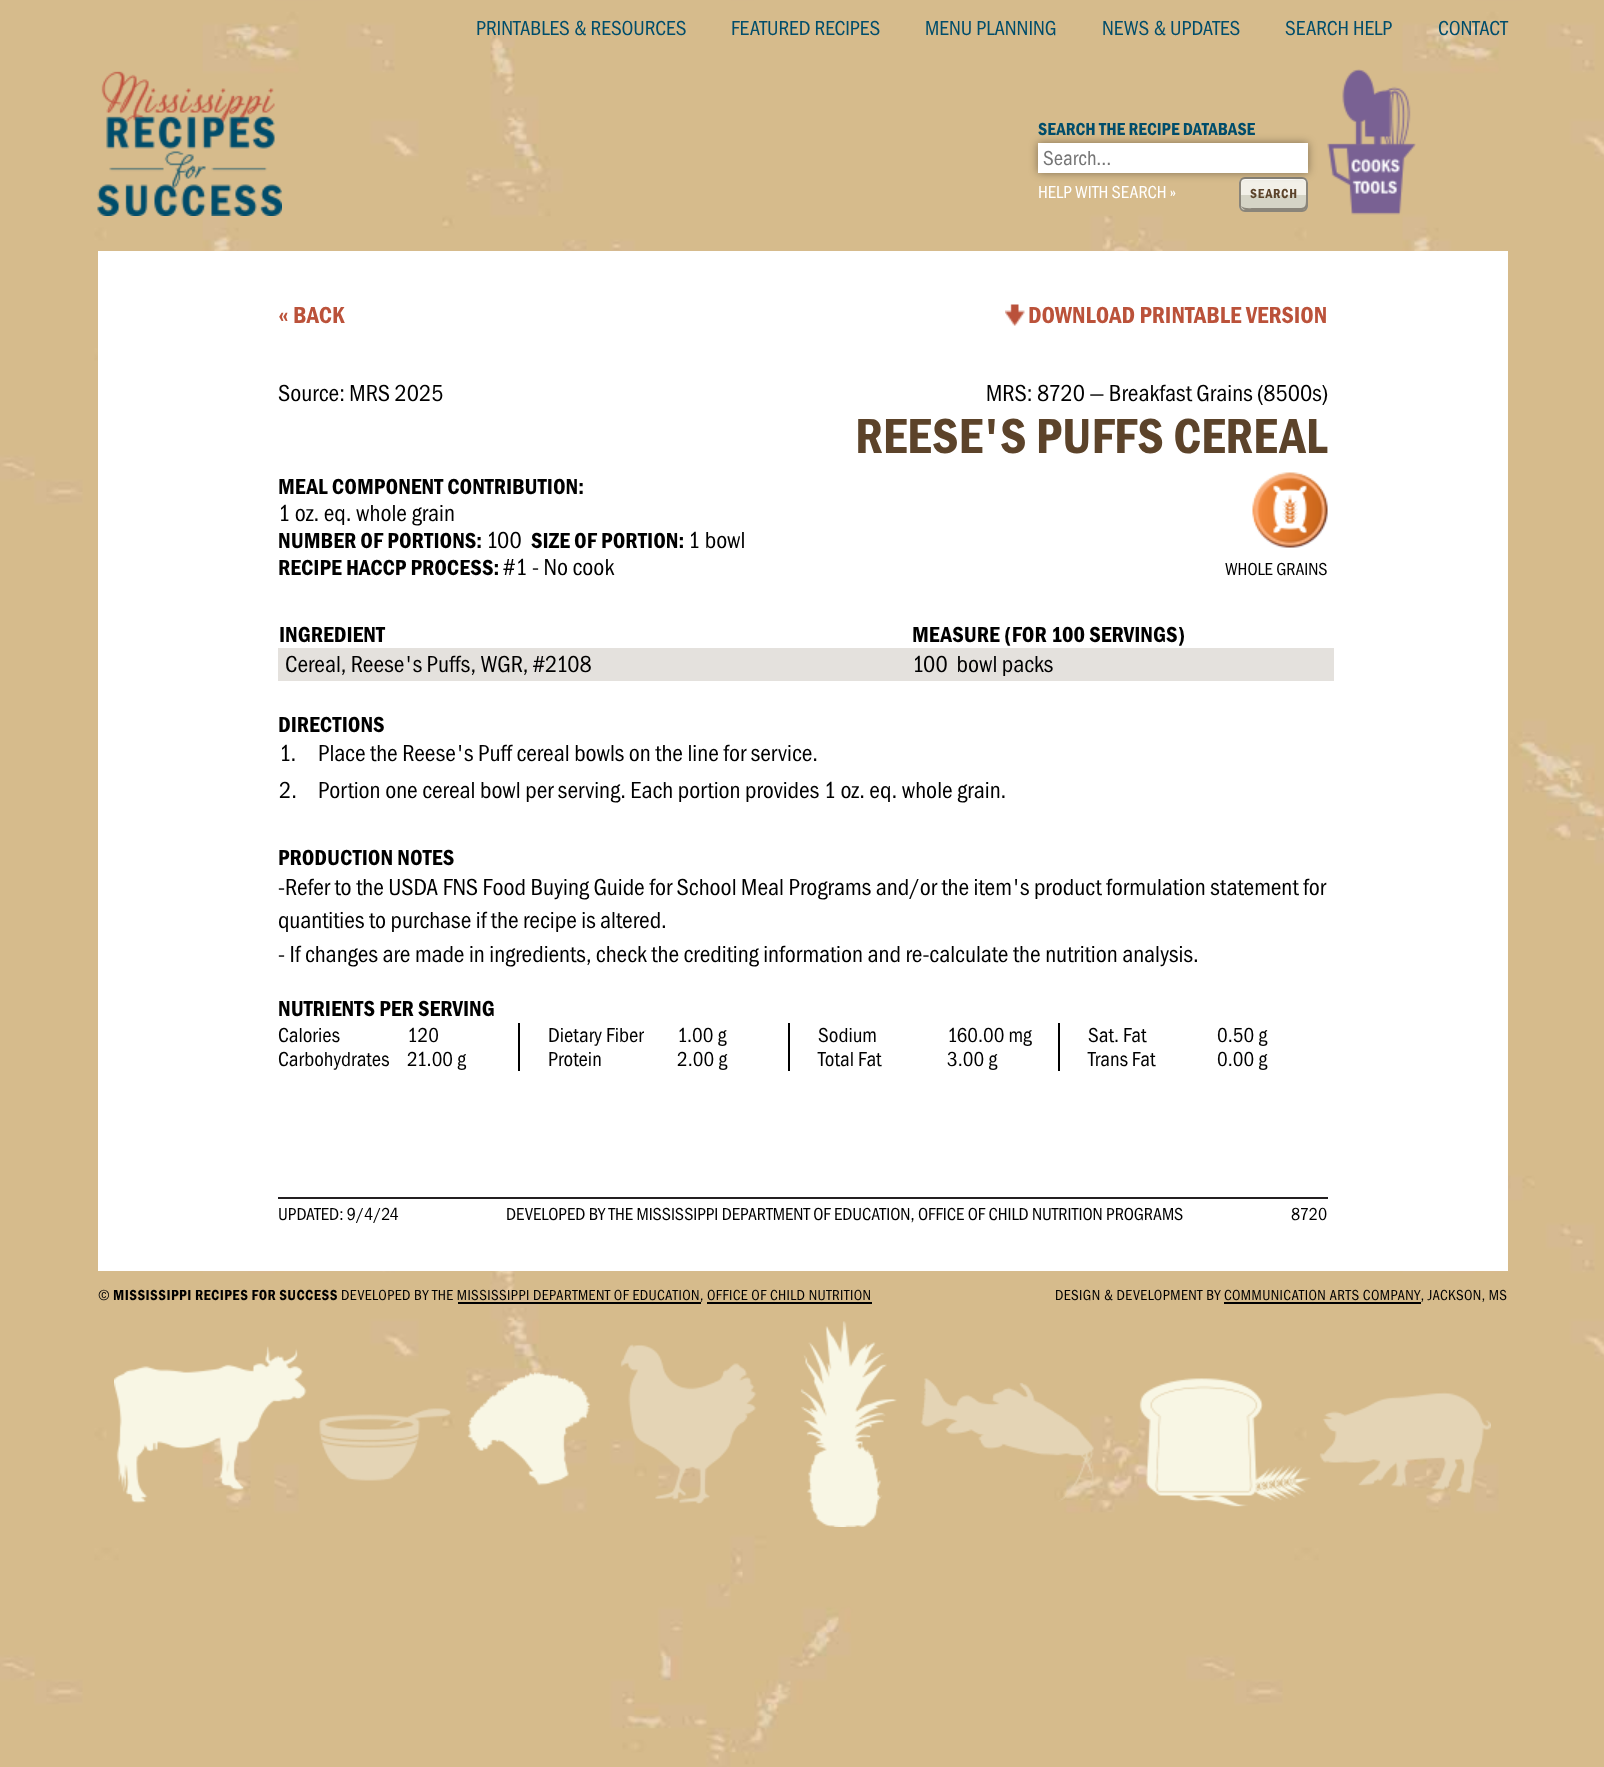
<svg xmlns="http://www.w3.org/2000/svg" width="1604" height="1767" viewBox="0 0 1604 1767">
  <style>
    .t1 { font: 21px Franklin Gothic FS; fill: #004d6b; }
    .t2 { font: 600 18px Franklin Gothic FS; fill: #004d6b; }
    .t3 { font: 21px Franklin Gothic FS; fill: #757575; }
    .t4 { font: 18px Franklin Gothic FS; fill: #fff; }
    .t5 { font: 600 13.5px Franklin Gothic FS; letter-spacing: 0.75px; fill: #5c432a; }
    .t6 { font: 600 24px Franklin Gothic FS; fill: #bb523a; }
    .t7 { font: 24px Franklin Gothic FS; fill: #000; }
    .t8 { font: 600 51px Franklin Gothic FS; fill: #5c432a; }
    .t9 { font: 600 22.5px Franklin Gothic FS; fill: #000; }
    .t10 { font: 18px Franklin Gothic FS; fill: #000; }
    .t11 { font: 21px Franklin Gothic FS; fill: #000; }
    .t12 { font: 15px Franklin Gothic FS; letter-spacing: 0.42px; fill: #000; }
    .t13 { font: 600 15px Franklin Gothic FS; letter-spacing: 0.42px; fill: #000; }
  </style>
  <defs>
    <clipPath id="clip1"><rect x="1239" y="177" width="69" height="35" rx="6"/></clipPath>
  </defs>
  <rect width="100%" height="100%" fill="#fff"/>
  <image x="0" y="0" width="1604" height="1767" href="images/1.png"/>
  <text x="476" y="35" class="t1">PRINTABLES &amp; RESOURCES</text>
  <text x="731" y="35" class="t1">FEATURED RECIPES</text>
  <text x="925" y="35" class="t1">MENU PLANNING</text>
  <text x="1102" y="35" class="t1">NEWS &amp; UPDATES</text>
  <text x="1285" y="35" class="t1">SEARCH HELP</text>
  <text x="1438" y="35" class="t1">CONTACT</text>
  <image x="97" y="71" width="185" height="145" href="images/2.png"/>
  <text x="1038" y="135" class="t2">SEARCH THE RECIPE DATABASE</text>
  <g clip-path="url(#clip1)">
    <rect x="1239" y="179" width="69" height="16" fill="#f2f0e8"/>
    <rect x="1239" y="195" width="69" height="15" fill="#d5d4c6"/>
  </g>
  <path d="M1241 206C1242 208 1244 210 1246 210H1302C1305 210 1307 208 1307 205V184C1307 183 1307 182 1306 181V197C1306 209 1306 208 1292 208H1254C1251 208 1244 209 1241 206Z" fill="#8a857a"/>
  <path d="M1245 180H1292C1295 180 1305 178 1306 183V208C1307 207 1307 206 1307 205V184C1307 181 1305 179 1302 179H1246C1244 179 1243 180 1242 181Z" fill="#fff"/>
  <rect x="1240" y="178" width="67" height="33" rx="5" fill="none" stroke="#8a857a" stroke-width="2"/>
  <rect x="1038" y="143" width="270" height="30" fill="#00000066" filter="blur(4.5px)"/>
  <rect x="1038" y="143" width="270" height="30" fill="#fff"/>
  <text x="1043" y="165" class="t3">Search…</text>
  <text x="1038" y="198" class="t4">HELP WITH SEARCH »</text>
  <text x="1250" y="198" class="t5">SEARCH</text>
  <image x="1327" y="69" width="89" height="146" href="images/3.png"/>
  <rect x="98" y="251" width="1410" height="1020" fill="#fff"/>
  <text x="278" y="323" class="t6">« BACK</text>
  <image x="1005" y="304" width="20" height="22" href="images/4.png"/>
  <text x="1028" y="323" class="t6">DOWNLOAD PRINTABLE VERSION</text>
  <text x="278" y="401" class="t7">Source: MRS 2025</text>
  <text x="986" y="401" class="t7">MRS: 8720 — Breakfast Grains (8500s)</text>
  <text x="855" y="453" class="t8">REESE'S PUFFS CEREAL</text>
  <text x="278" y="494" class="t9">MEAL COMPONENT CONTRIBUTION:</text>
  <text x="278" y="521" class="t7">1 oz. eq. whole grain</text>
  <text x="278" y="548" class="t9">NUMBER OF PORTIONS:</text>
  <text x="486" y="548" class="t7">100</text>
  <text x="531" y="548" class="t9">SIZE OF PORTION:</text>
  <text x="688" y="548" class="t7">1 bowl</text>
  <text x="278" y="575" class="t9">RECIPE HACCP PROCESS:</text>
  <text x="503" y="575" class="t7">#1 - No cook</text>
  <image x="1252" y="472" width="76" height="76" href="images/5.png"/>
  <text x="1225" y="575" class="t10">WHOLE GRAINS</text>
  <text x="279" y="642" class="t9">INGREDIENT</text>
  <text x="912" y="642" class="t9">MEASURE (FOR 100 SERVINGS)</text>
  <rect x="278" y="648" width="1056" height="33" fill="#e4e1dd"/>
  <text x="285" y="672" class="t7">Cereal, Reese's Puffs, WGR, #2108</text>
  <text x="912" y="672" class="t7" xml:space="preserve">100  bowl packs</text>
  <text x="278" y="732" class="t9">DIRECTIONS</text>
  <text x="279" y="761" class="t7">1.</text>
  <text x="318" y="761" class="t7">Place the Reese's Puff cereal bowls on the line for service.</text>
  <text x="279" y="798" class="t7">2.</text>
  <text x="318" y="798" class="t7">Portion one cereal bowl per serving. Each portion provides 1 oz. eq. whole grain.</text>
  <text x="278" y="865" class="t9">PRODUCTION NOTES</text>
  <text x="278" y="895" class="t7">-Refer to the USDA FNS Food Buying Guide for School Meal Programs and/or the item's product formulation statement for</text>
  <text x="278" y="928" class="t7">quantities to purchase if the recipe is altered.</text>
  <text x="278" y="962" class="t7">- If changes are made in ingredients, check the crediting information and re-calculate the nutrition analysis.</text>
  <text x="278" y="1016" class="t9">NUTRIENTS PER SERVING</text>
  <rect x="518" y="1023" width="2" height="48" fill="#000"/>
  <text x="278" y="1042" class="t11">Calories</text>
  <text x="407" y="1042" class="t11">120</text>
  <text x="278" y="1066" class="t11">Carbohydrates</text>
  <text x="407" y="1066" class="t11">21.00 g</text>
  <rect x="788" y="1023" width="2" height="48" fill="#000"/>
  <text x="548" y="1042" class="t11">Dietary Fiber</text>
  <text x="677" y="1042" class="t11">1.00 g</text>
  <text x="548" y="1066" class="t11">Protein</text>
  <text x="677" y="1066" class="t11">2.00 g</text>
  <rect x="1058" y="1023" width="2" height="48" fill="#000"/>
  <text x="818" y="1042" class="t11">Sodium</text>
  <text x="947" y="1042" class="t11">160.00 mg</text>
  <text x="818" y="1066" class="t11">Total Fat</text>
  <text x="947" y="1066" class="t11">3.00 g</text>
  <text x="1088" y="1042" class="t11">Sat. Fat</text>
  <text x="1217" y="1042" class="t11">0.50 g</text>
  <text x="1088" y="1066" class="t11">Trans Fat</text>
  <text x="1217" y="1066" class="t11">0.00 g</text>
  <rect x="278" y="1197" width="1050" height="2" fill="#231f20"/>
  <text x="278" y="1220" class="t10">UPDATED: 9/4/24</text>
  <text x="506" y="1220" class="t10">DEVELOPED BY THE MISSISSIPPI DEPARTMENT OF EDUCATION, OFFICE OF CHILD NUTRITION PROGRAMS</text>
  <text x="1291" y="1220" class="t10">8720</text>
  <text x="98" y="1300" class="t12">©</text>
  <text x="113" y="1300" class="t13">MISSISSIPPI RECIPES FOR SUCCESS</text>
  <text x="341" y="1300" class="t12">DEVELOPED BY THE MISSISSIPPI DEPARTMENT OF EDUCATION, OFFICE OF CHILD NUTRITION</text>
  <rect x="458" y="1302" width="243" height="2" fill="#000"/>
  <rect x="707" y="1302" width="165" height="2" fill="#000"/>
  <text x="1055" y="1300" class="t12">DESIGN &amp; DEVELOPMENT BY COMMUNICATION ARTS COMPANY, JACKSON, MS</text>
  <rect x="1224" y="1302" width="197" height="2" fill="#000"/>
  <image x="114" y="1321" width="1377" height="206" href="images/6.png"/>
</svg>
